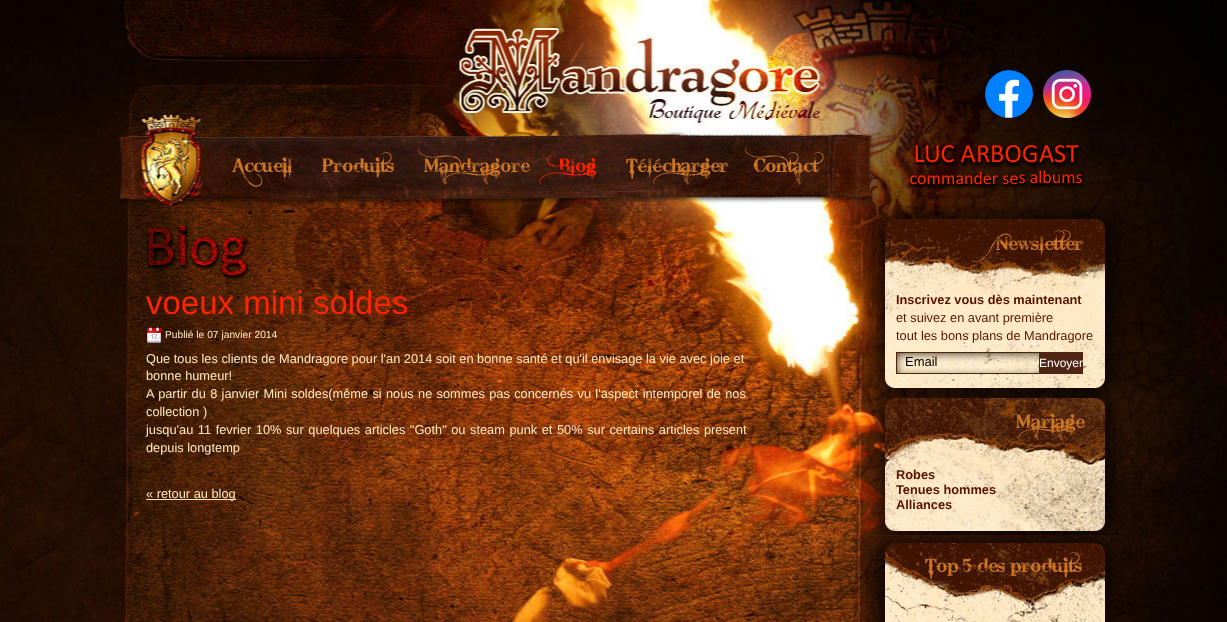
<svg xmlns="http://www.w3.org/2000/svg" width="1227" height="622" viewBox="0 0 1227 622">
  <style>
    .t1 { font: 33px Liberation Sans; fill: #fd2400; }
    .t2 { font: 10.25px Liberation Sans; fill: #ffe8c1; }
    .t3 { font: 12.8px Liberation Sans; fill: #ffe8c1; }
    .t4 { font: bold 12.8px Liberation Sans; fill: #561401; }
    .t5 { font: 12.8px Liberation Sans; fill: #561401; }
    .t6 { font: 13px Liberation Sans; fill: #000; }
    .t7 { font: 12px Liberation Sans; fill: #fff; }
  </style>
  <rect width="100%" height="100%" fill="#fff"/>
  <image x="0" y="0" width="1227" height="622" href="images/1.png"/>
  <image x="106" y="0" width="1015" height="622" href="images/2.png"/>
  <image x="985" y="70" width="48" height="48" href="images/3.png"/>
  <image x="1043" y="70" width="48" height="48" href="images/4.png"/>
  <image x="232" y="148" width="592" height="39" href="images/5.png"/>
  <image x="539" y="154" width="58" height="31" href="images/6.png"/>
  <image x="907" y="144" width="178" height="46" href="images/7.png"/>
  <image x="141" y="218" width="112" height="66" href="images/8.png"/>
  <text x="146" y="314" class="t1">voeux mini soldes</text>
  <image x="147" y="327" width="14" height="16" href="images/9.png"/>
  <text x="165" y="338" class="t2">Publié le 07 janvier 2014</text>
  <text x="146" y="363" class="t3">Que tous les clients de Mandragore pour l'an 2014 soit en bonne santé et qu'il envisage la vie avec joie et</text>
  <text x="146" y="380" class="t3">bonne humeur!</text>
  <text x="146" y="398" word-spacing="0.75" class="t3">A partir du 8 janvier Mini soldes(même si nous ne sommes pas concernés vu l'aspect intemporel de nos</text>
  <text x="146" y="416" class="t3">collection )</text>
  <text x="146" y="434" word-spacing="1" class="t3">jusqu'au 11 fevrier 10% sur quelques articles "Goth" ou steam punk et 50% sur certains articles present</text>
  <text x="146" y="452" class="t3">depuis longtemp</text>
  <rect x="146" y="499" width="90" height="1" fill="#ffe8c1"/>
  <text x="146" y="498" class="t3">« retour au blog</text>
  <image x="866" y="205" width="255" height="187" href="images/10.png"/>
  <text x="896" y="304" class="t4">Inscrivez vous dès maintenant</text>
  <text x="896" y="322" class="t5">et suivez en avant première</text>
  <text x="896" y="340" class="t5">tout les bons plans de Mandragore</text>
  <image x="896" y="352" width="143" height="22" href="images/11.png"/>
  <text x="905" y="366" class="t6">Email</text>
  <rect x="1039" y="352" width="44" height="22" fill="#4e2414"/>
  <text x="1039" y="367" class="t7">Envoyer</text>
  <image x="866" y="392" width="265" height="143" href="images/12.png"/>
  <text x="896" y="479" class="t4">Robes</text>
  <text x="896" y="494" class="t4">Tenues hommes</text>
  <text x="896" y="509" class="t4">Alliances</text>
  <image x="866" y="535" width="265" height="87" href="images/13.png"/>
</svg>
